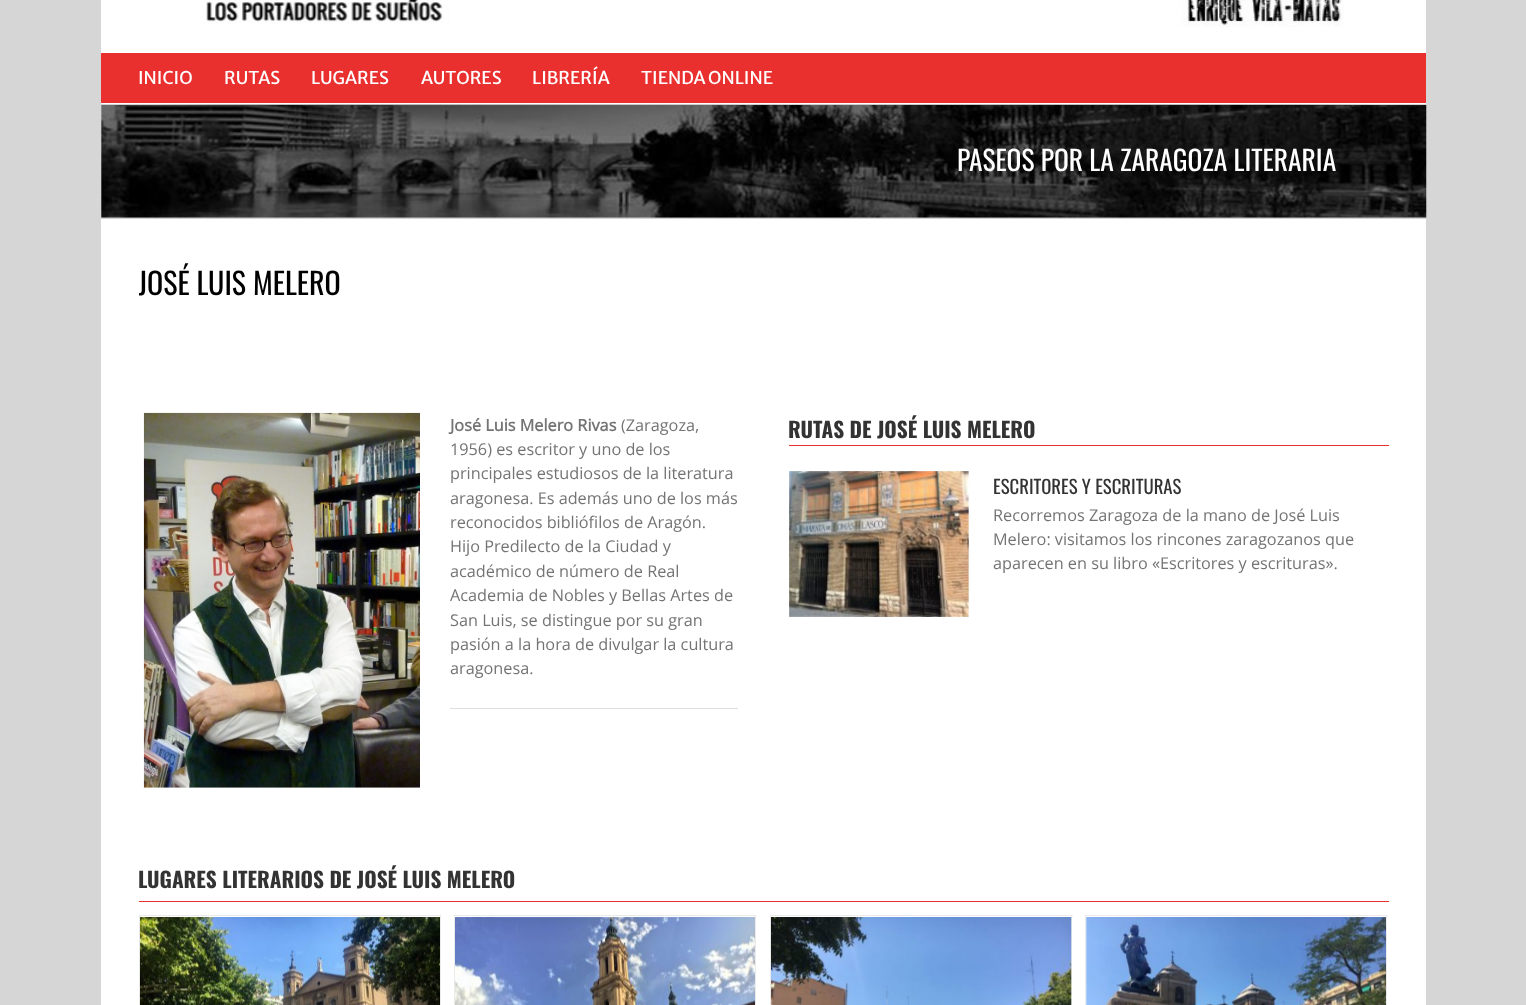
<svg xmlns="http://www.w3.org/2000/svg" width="1526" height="1005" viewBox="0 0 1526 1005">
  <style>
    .t1 { font: 17.5px Merriweather Sans; fill: #fff; }
    .t2 { font: 27.5px Oswald; fill: #fff; }
    .t3 { font: 30px Oswald; fill: #000; }
    .t4 { font: bold 16.25px Open Sans; fill: #747474; }
    .t5 { font: 16.25px Open Sans; fill: #747474; }
    .t6 { font: bold 21.25px Oswald; fill: #333; }
    .t7 { font: 18.75px Oswald; fill: #333; }
  </style>
  <defs>
    <clipPath id="clip1"><rect x="139" y="220" width="1250" height="123"/></clipPath>
  </defs>
  <rect width="100%" height="100%" fill="#d7d6d6"/>
  <rect x="101" y="0" width="1325" height="53" fill="#fff"/>
  <image x="206" y="0" width="1138" height="27" href="images/1.png"/>
  <rect x="101" y="53" width="1325" height="50" fill="#ea2f2f"/>
  <rect x="101" y="103" width="1325" height="1" fill="#fff"/>
  <text x="138" y="84" class="t1">INICIO</text>
  <text x="224" y="84" class="t1">RUTAS</text>
  <text x="311" y="84" class="t1">LUGARES</text>
  <text x="421" y="84" class="t1">AUTORES</text>
  <text x="532" y="84" class="t1">LIBRERÍA</text>
  <text x="641" y="84" class="t1">TIENDA ONLINE</text>
  <rect x="101" y="105" width="1325" height="113" fill="#fff"/>
  <rect x="101" y="104" width="1325" height="1" fill="#d2d3d4"/>
  <rect x="101" y="218" width="1325" height="1" fill="#d2d3d4"/>
  <image x="101" y="105" width="1326" height="113" href="images/3.png"/>
  <image x="161" y="104" width="1208" height="32" href="images/2.png"/>
  <text x="957" y="171" class="t2">PASEOS POR LA ZARAGOZA LITERARIA</text>
  <image x="111" y="200" width="1281" height="18" href="images/4.png"/>
  <rect x="101" y="219" width="1325" height="786" fill="#fff"/>
  <g clip-path="url(#clip1)">
    <text x="138" y="295" class="t3">JOSÉ LUIS MELERO</text>
  </g>
  <image x="143" y="412" width="277" height="376" href="images/5.png"/>
  <text x="450" y="431" class="t4">José Luis Melero Rivas</text>
  <text x="621" y="431" class="t5">(Zaragoza,</text>
  <text x="450" y="455" class="t5">1956) es escritor y uno de los</text>
  <text x="450" y="479" class="t5">principales estudiosos de la literatura</text>
  <text x="450" y="504" class="t5">aragonesa. Es además uno de los más</text>
  <text x="450" y="528" class="t5">reconocidos bibliófilos de Aragón.</text>
  <text x="450" y="552" class="t5">Hijo Predilecto de la Ciudad y</text>
  <text x="450" y="577" class="t5">académico de número de Real</text>
  <text x="450" y="601" class="t5">Academia de Nobles y Bellas Artes de</text>
  <text x="450" y="626" class="t5">San Luis, se distingue por su gran</text>
  <text x="450" y="650" class="t5">pasión a la hora de divulgar la cultura</text>
  <text x="450" y="674" class="t5">aragonesa.</text>
  <rect x="450" y="708" width="288" height="1" fill="#e0dede"/>
  <text x="788" y="438" class="t6">RUTAS DE JOSÉ LUIS MELERO</text>
  <rect x="789" y="445" width="600" height="1" fill="#ea2f2f"/>
  <image x="789" y="471" width="180" height="146" href="images/6.png"/>
  <text x="993" y="494" class="t7">ESCRITORES Y ESCRITURAS</text>
  <text x="993" y="521" class="t5">Recorremos Zaragoza de la mano de José Luis</text>
  <text x="993" y="545" class="t5">Melero: visitamos los rincones zaragozanos que</text>
  <text x="993" y="569" class="t5">aparecen en su libro «Escritores y escrituras».</text>
  <text x="138" y="888" class="t6">LUGARES LITERARIOS DE JOSÉ LUIS MELERO</text>
  <rect x="139" y="901" width="1250" height="1" fill="#ea2f2f"/>
  <rect x="139" y="915" width="302" height="1" fill="#ebeaea"/>
  <rect x="440" y="915" width="1" height="90" fill="#ebeaea"/>
  <rect x="139" y="915" width="1" height="90" fill="#ebeaea"/>
  <image x="140" y="917" width="300" height="88" href="images/7.png"/>
  <rect x="454" y="915" width="302" height="1" fill="#ebeaea"/>
  <rect x="755" y="915" width="1" height="90" fill="#ebeaea"/>
  <rect x="454" y="915" width="1" height="90" fill="#ebeaea"/>
  <image x="455" y="917" width="300" height="88" href="images/8.png"/>
  <rect x="770" y="915" width="303" height="1" fill="#ebeaea"/>
  <rect x="1071" y="915" width="1" height="90" fill="#ebeaea"/>
  <rect x="770" y="915" width="1" height="90" fill="#ebeaea"/>
  <image x="771" y="917" width="301" height="88" href="images/9.png"/>
  <rect x="1085" y="915" width="303" height="1" fill="#ebeaea"/>
  <rect x="1386" y="915" width="1" height="90" fill="#ebeaea"/>
  <rect x="1085" y="915" width="1" height="90" fill="#ebeaea"/>
  <image x="1086" y="917" width="300" height="88" href="images/10.png"/>
</svg>
